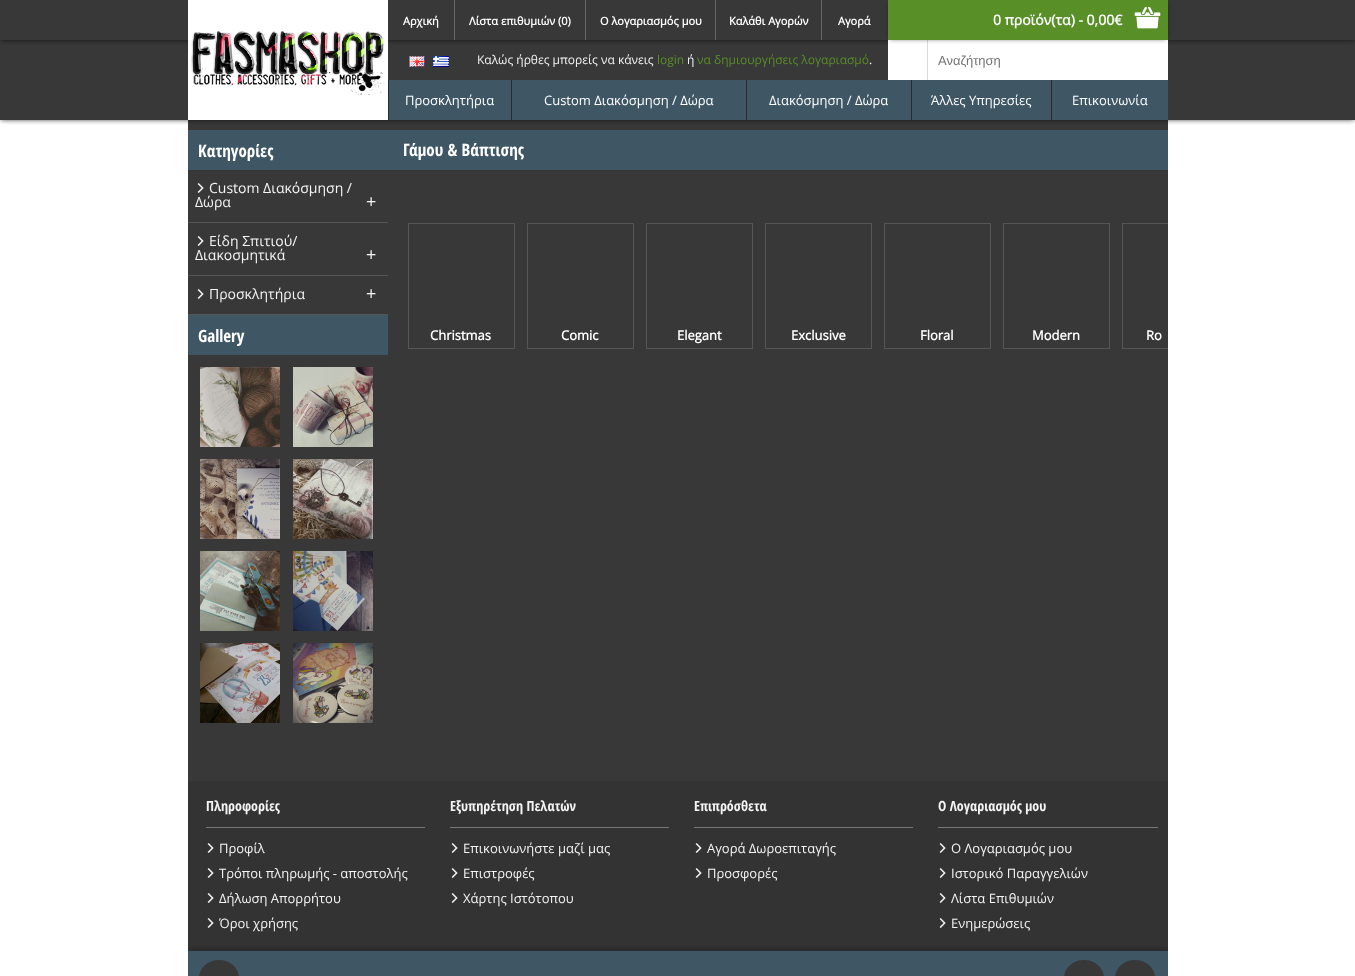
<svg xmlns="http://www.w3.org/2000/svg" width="1355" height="976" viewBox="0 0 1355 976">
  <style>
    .t1 { font: bold 11px Open Sans; fill: #fff; }
    .t2 { font: bold 14px Open Sans; fill: #fff; }
    .t3 { font: 12px Open Sans; fill: #f4f4f4; }
    .t4 { font: 12px Open Sans; fill: #588f27; }
    .t5 { font: 13px Liberation Sans; fill: #757575; }
    .t6 { font: 13px Open Sans; fill: #fff; }
    .t7 { font: bold 17px Open Sans Condensed; fill: #fff; }
    .t8 { font: 11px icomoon; fill: #f4f4f4; }
    .t9 { font: 14px Open Sans; fill: #f4f4f4; }
    .t10 { font: 18px Open Sans; fill: #f4f4f4; }
    .t11 { font: bold 13px Open Sans; fill: #fff; }
    .t12 { font: bold 14px Open Sans Condensed; fill: #f4f4f4; }
    .t13 { font: 13px Open Sans; fill: #f4f4f4; }
  </style>
  <defs>
    <clipPath id="clip1"><rect x="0" y="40" width="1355" height="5"/></clipPath>
    <clipPath id="clip2"><rect x="408" y="223" width="760" height="142"/></clipPath>
    <clipPath id="clip3"><rect x="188" y="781" width="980" height="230"/></clipPath>
  </defs>
  <rect width="100%" height="100%" fill="#fff"/>
  <rect x="188" y="120" width="980" height="10" fill="#383838"/>
  <rect x="1" y="2" width="1353" height="118" fill="#000000b3" filter="blur(2.5px)"/>
  <rect x="0" y="0" width="1355" height="120" fill="#383838"/>
  <g clip-path="url(#clip1)">
    <rect x="1" y="2" width="1353" height="38" fill="#000000b3" filter="blur(2.5px)"/>
  </g>
  <rect x="188" y="0" width="200" height="120" fill="#fff"/>
  <image x="191" y="31" width="194" height="64" href="images/1.png"/>
  <text x="403" y="25" class="t1">Αρχική</text>
  <rect x="454" y="0" width="1" height="40" fill="#666"/>
  <text x="469" y="25" class="t1">Λίστα επιθυμιών (0)</text>
  <rect x="585" y="0" width="1" height="40" fill="#666"/>
  <text x="600" y="25" class="t1">Ο λογαριασμός μου</text>
  <rect x="715" y="0" width="1" height="40" fill="#666"/>
  <text x="729" y="25" class="t1">Καλάθι Αγορών</text>
  <rect x="821" y="0" width="1" height="40" fill="#666"/>
  <text x="838" y="25" class="t1">Αγορά</text>
  <rect x="888" y="40" width="280" height="40" fill="#fff"/>
  <rect x="927" y="40" width="1" height="40" fill="#dbdbdb"/>
  <rect x="890" y="3" width="276" height="36" fill="#00000099" filter="blur(2.5px)"/>
  <rect x="888" y="0" width="280" height="40" fill="#588f27"/>
  <text x="993" y="25" class="t2">0 προϊόν(τα) - 0,00€</text>
  <image x="1134" y="7" width="27" height="22" href="images/2.png"/>
  <image x="409" y="56" width="16" height="11" href="images/3.png"/>
  <image x="433" y="56" width="16" height="11" href="images/4.png"/>
  <text x="477" y="64" class="t3">Καλώς ήρθες μπορείς να κάνεις</text>
  <text x="657" y="64" class="t4">login</text>
  <text x="687" y="64" class="t3">ή</text>
  <text x="697" y="64" class="t4">να δημιουργήσεις λογαριασμό</text>
  <text x="869" y="64" class="t3">.</text>
  <text x="938" y="65" class="t5">Αναζήτηση</text>
  <rect x="389" y="80" width="779" height="40" fill="#3f5765"/>
  <rect x="388" y="80" width="1" height="40" fill="#2a2b2e"/>
  <text x="405" y="105" class="t6">Προσκλητήρια</text>
  <rect x="511" y="80" width="1" height="40" fill="#2a2b2e"/>
  <text x="544" y="105" class="t6">Custom Διακόσμηση / Δώρα</text>
  <rect x="746" y="80" width="1" height="40" fill="#2a2b2e"/>
  <text x="769" y="105" class="t6">Διακόσμηση / Δώρα</text>
  <rect x="911" y="80" width="1" height="40" fill="#2a2b2e"/>
  <text x="931" y="105" class="t6">Άλλες Υπηρεσίες</text>
  <rect x="1051" y="80" width="1" height="40" fill="#2a2b2e"/>
  <text x="1072" y="105" class="t6">Επικοινωνία</text>
  <rect x="188" y="170" width="980" height="611" fill="#383838"/>
  <rect x="188" y="130" width="980" height="40" fill="#3f5765"/>
  <text x="198" y="157" class="t7">Κατηγορίες</text>
  <rect x="188" y="222" width="200" height="1" fill="#555"/>
  <text x="195" y="193" class="t8">1</text>
  <text x="209" y="193" class="t9">Custom Διακόσμηση /</text>
  <text x="195" y="207" class="t9">Δώρα</text>
  <text x="366" y="208" class="t10">+</text>
  <rect x="188" y="275" width="200" height="1" fill="#555"/>
  <text x="195" y="246" class="t8">1</text>
  <text x="209" y="246" class="t9">Είδη Σπιτιού/</text>
  <text x="195" y="260" class="t9">Διακοσμητικά</text>
  <text x="366" y="261" class="t10">+</text>
  <rect x="188" y="314" width="200" height="1" fill="#555"/>
  <text x="195" y="299" class="t8">1</text>
  <text x="209" y="299" class="t9">Προσκλητήρια</text>
  <text x="366" y="300" class="t10">+</text>
  <rect x="188" y="315" width="200" height="40" fill="#3f5765"/>
  <text x="198" y="342" class="t7">Gallery</text>
  <image x="200" y="367" width="80" height="80" href="images/5.png"/>
  <image x="293" y="367" width="80" height="80" href="images/6.png"/>
  <image x="200" y="459" width="80" height="80" href="images/7.png"/>
  <image x="293" y="459" width="80" height="80" href="images/8.png"/>
  <image x="200" y="551" width="80" height="80" href="images/9.png"/>
  <image x="293" y="551" width="80" height="80" href="images/10.png"/>
  <image x="200" y="643" width="80" height="80" href="images/11.png"/>
  <image x="293" y="643" width="80" height="80" href="images/12.png"/>
  <text x="403" y="156" class="t7">Γάμου &amp; Βάπτισης</text>
  <rect x="408.5" y="223.5" width="106" height="125" fill="none" stroke="#555"/>
  <text x="430" y="340" class="t11">Christmas</text>
  <rect x="527.5" y="223.5" width="106" height="125" fill="none" stroke="#555"/>
  <text x="561" y="340" class="t11">Comic</text>
  <rect x="646.5" y="223.5" width="106" height="125" fill="none" stroke="#555"/>
  <text x="677" y="340" class="t11">Elegant</text>
  <rect x="765.5" y="223.5" width="106" height="125" fill="none" stroke="#555"/>
  <text x="791" y="340" class="t11">Exclusive</text>
  <rect x="884.5" y="223.5" width="106" height="125" fill="none" stroke="#555"/>
  <text x="920" y="340" class="t11">Floral</text>
  <rect x="1003.5" y="223.5" width="106" height="125" fill="none" stroke="#555"/>
  <text x="1032" y="340" class="t11">Modern</text>
  <g clip-path="url(#clip2)">
    <rect x="1122.5" y="223.5" width="106" height="125" fill="none" stroke="#555"/>
  </g>
  <text x="1146" y="340" class="t11">Ro</text>
  <rect x="188" y="781" width="980" height="170" fill="#333"/>
  <rect x="206" y="827" width="219" height="1" fill="#777"/>
  <text x="206" y="811" class="t12">Πληροφορίες</text>
  <text x="205" y="853" class="t8">1</text>
  <text x="219" y="853" class="t13">Προφίλ</text>
  <text x="205" y="878" class="t8">1</text>
  <text x="219" y="878" class="t13">Τρόποι πληρωμής - αποστολής</text>
  <text x="205" y="903" class="t8">1</text>
  <text x="219" y="903" class="t13">Δήλωση Απορρήτου</text>
  <text x="205" y="928" class="t8">1</text>
  <text x="219" y="928" class="t13">Όροι χρήσης</text>
  <rect x="450" y="827" width="219" height="1" fill="#777"/>
  <text x="450" y="811" class="t12">Εξυπηρέτηση Πελατών</text>
  <text x="449" y="853" class="t8">1</text>
  <text x="463" y="853" class="t13">Επικοινωνήστε μαζί μας</text>
  <text x="449" y="878" class="t8">1</text>
  <text x="463" y="878" class="t13">Επιστροφές</text>
  <text x="449" y="903" class="t8">1</text>
  <text x="463" y="903" class="t13">Χάρτης Ιστότοπου</text>
  <rect x="694" y="827" width="219" height="1" fill="#777"/>
  <text x="694" y="811" class="t12">Επιπρόσθετα</text>
  <text x="693" y="853" class="t8">1</text>
  <text x="707" y="853" class="t13">Αγορά Δωροεπιταγής</text>
  <text x="693" y="878" class="t8">1</text>
  <text x="707" y="878" class="t13">Προσφορές</text>
  <rect x="938" y="827" width="220" height="1" fill="#777"/>
  <text x="938" y="811" class="t12">Ο Λογαριασμός μου</text>
  <text x="937" y="853" class="t8">1</text>
  <text x="951" y="853" class="t13">Ο Λογαριασμός μου</text>
  <text x="937" y="878" class="t8">1</text>
  <text x="951" y="878" class="t13">Ιστορικό Παραγγελιών</text>
  <text x="937" y="903" class="t8">1</text>
  <text x="951" y="903" class="t13">Λίστα Επιθυμιών</text>
  <text x="937" y="928" class="t8">1</text>
  <text x="951" y="928" class="t13">Ενημερώσεις</text>
  <g clip-path="url(#clip3)">
    <rect x="188" y="951" width="980" height="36" fill="#00000066" filter="blur(3.5px)"/>
  </g>
  <rect x="188" y="951" width="980" height="25" fill="#3f5765"/>
  <rect x="199" y="960" width="40" height="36" rx="20" fill="#383838"/>
  <rect x="1064" y="960" width="40" height="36" rx="20" fill="#383838"/>
  <rect x="1115" y="960" width="40" height="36" rx="20" fill="#383838"/>
</svg>
